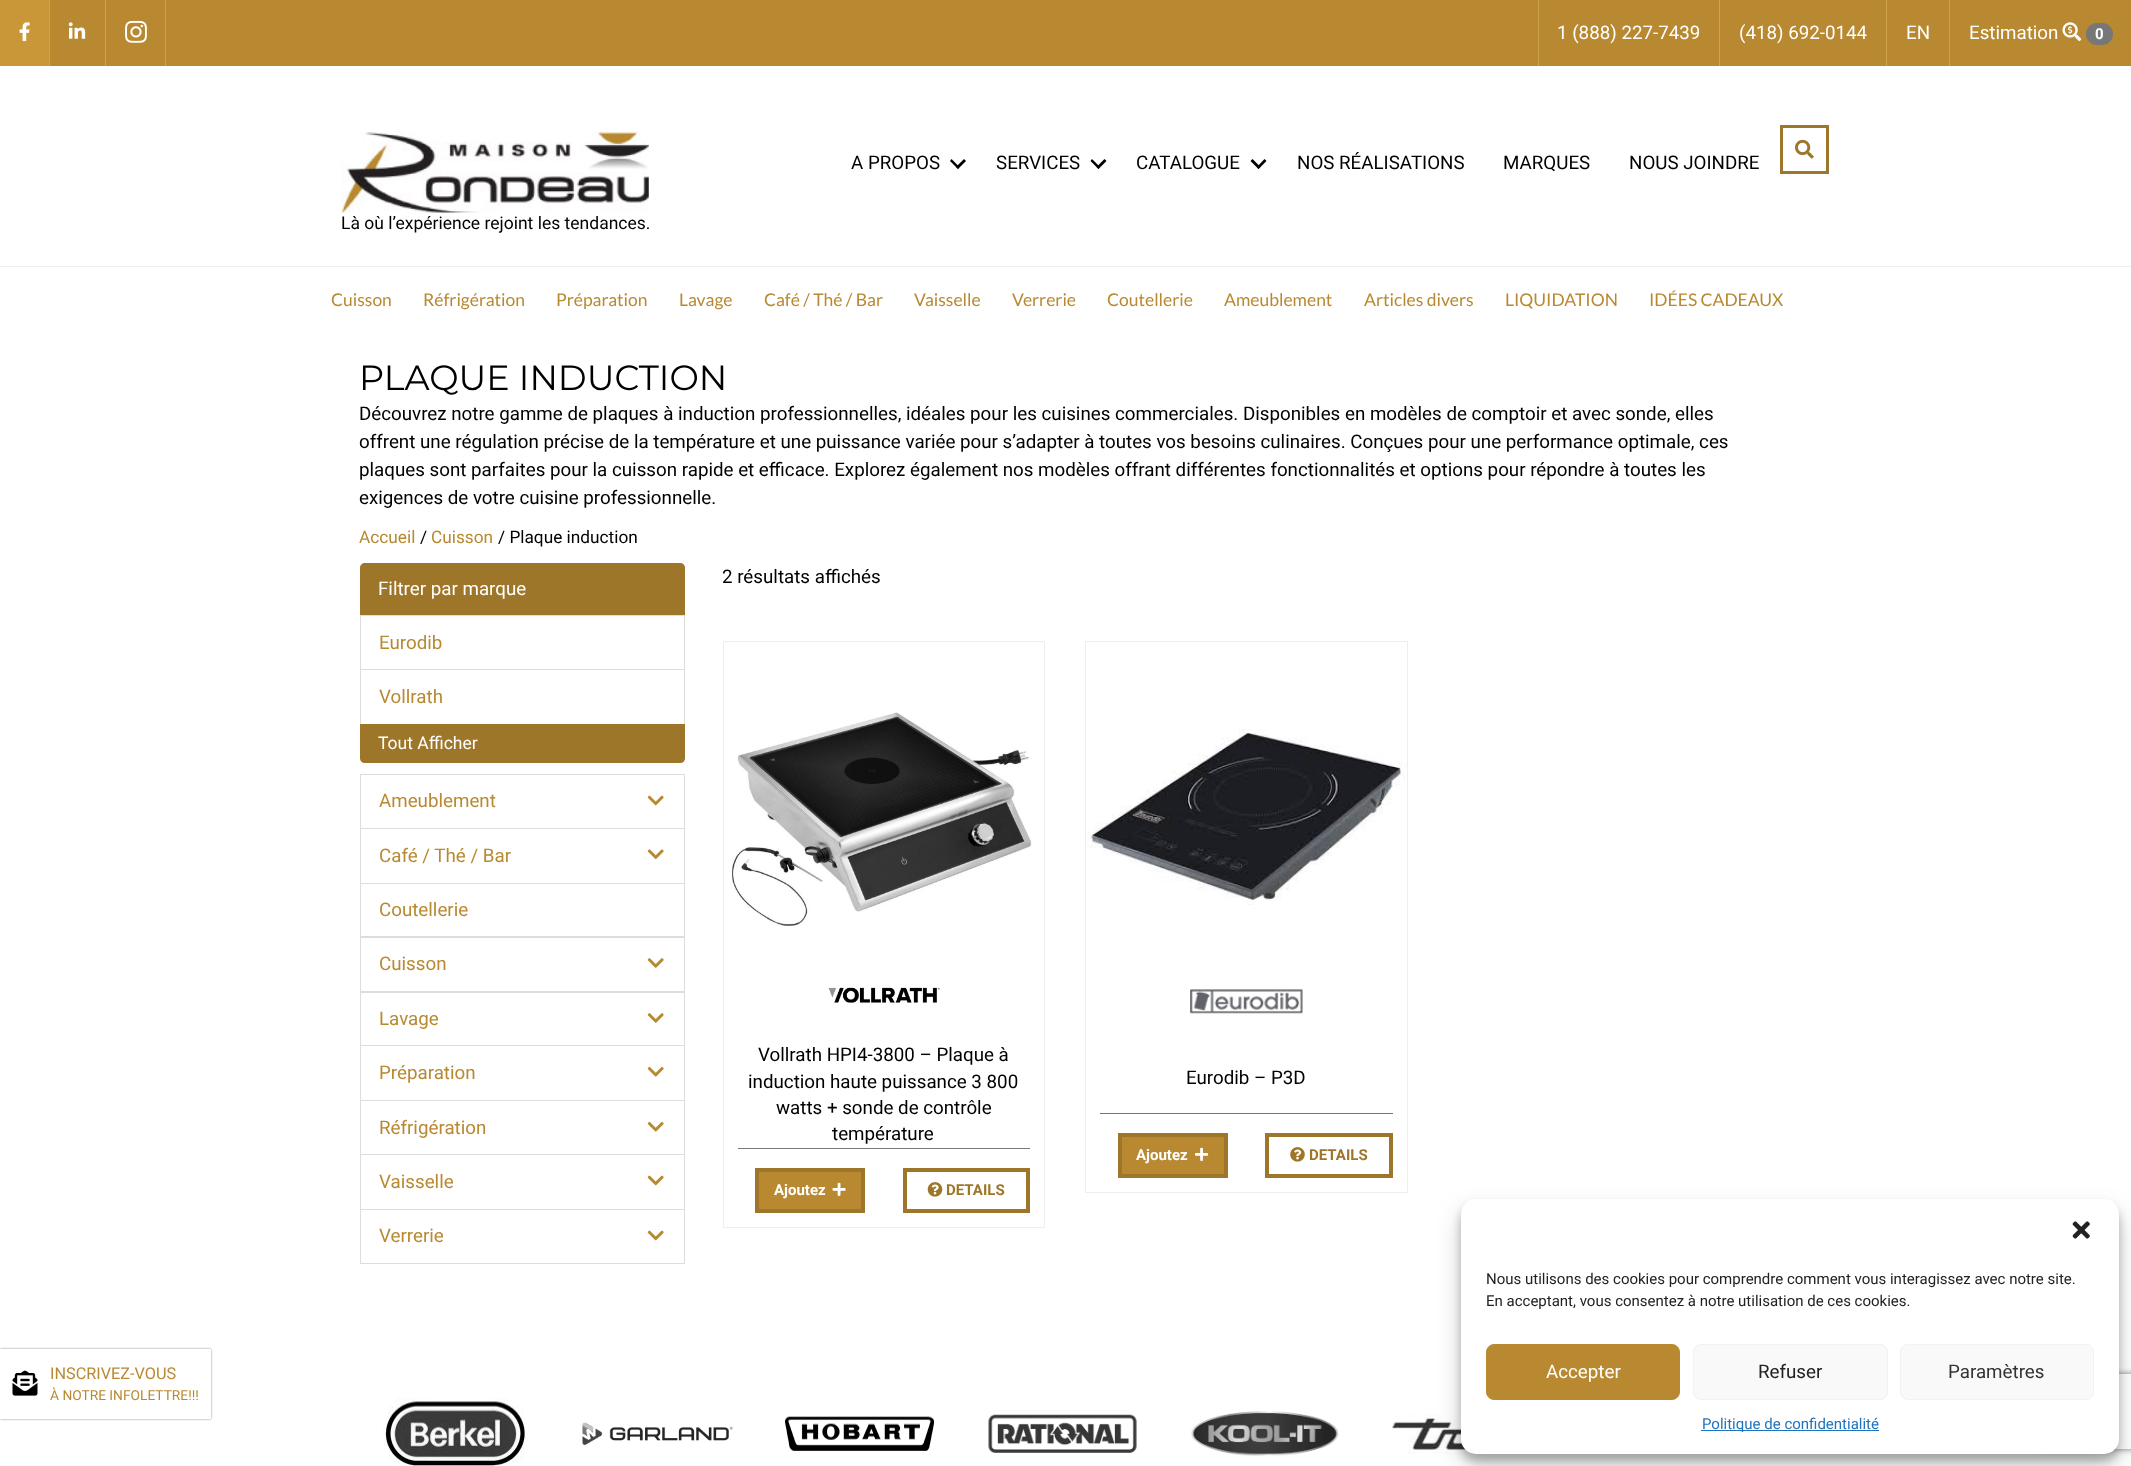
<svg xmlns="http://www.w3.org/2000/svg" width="2131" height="1466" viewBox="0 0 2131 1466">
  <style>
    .t1 { font: 18.75px Roboto; fill: #fff; }
    .t2 { font: bold 15px Roboto; fill: #fff; }
    .t3 { font: 18.75px Roboto; fill: #000; }
    .t4 { font: 17.5px Roboto; fill: #000; }
    .t5 { font: 17.5px Lato; fill: #b88931; }
    .t6 { font: 100 35px Montserrat; fill: #000; }
    .t7 { font: 17.25px Roboto; fill: #b88931; }
    .t8 { font: 17.25px Roboto; fill: #000; }
    .t9 { font: 18.75px Roboto; fill: #b88931; }
    .t10 { font: 17.5px Roboto; fill: #fff; }
    .t11 { font: bold 15px Roboto; fill: #9e762a; }
    .t12 { font: 16.25px Roboto; fill: #b88931; }
    .t13 { font: 13.75px Roboto; fill: #b88931; }
    .t14 { font: 15px Roboto; fill: #222; }
    .t15 { font: 18.75px Roboto; fill: #222; }
    .t16 { font: 18.75px Roboto; fill: #333; }
    .t17 { font: 15px Roboto; fill: #1e73be; }
  </style>
  <defs>
    <clipPath id="clip1"><path d="M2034 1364H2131V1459H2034ZM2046.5 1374H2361.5C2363 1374 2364 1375 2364 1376.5V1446.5C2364 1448 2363 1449 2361.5 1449H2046.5C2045 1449 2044 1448 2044 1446.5V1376.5C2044 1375 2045 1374 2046.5 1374Z" clip-rule="evenodd"/></clipPath>
  </defs>
  <rect width="100%" height="100%" fill="#fff"/>
  <rect x="50" y="0" width="2081" height="66" fill="#b88931"/>
  <rect x="49" y="0" width="1" height="66" fill="#cfa24d"/>
  <rect x="0" y="0" width="49" height="66" fill="#ca9738"/>
  <image x="19" y="22" width="11" height="20" href="images/1.png"/>
  <rect x="105" y="0" width="1" height="66" fill="#cfa24d"/>
  <image x="68" y="22" width="18" height="17" href="images/2.png"/>
  <rect x="165" y="0" width="1" height="66" fill="#cfa24d"/>
  <image x="125" y="20" width="22" height="23" href="images/3.png"/>
  <rect x="1538" y="0" width="1" height="66" fill="#cfa24d"/>
  <text x="1557" y="39" class="t1">1 (888) 227-7439</text>
  <rect x="1719" y="0" width="1" height="66" fill="#cfa24d"/>
  <text x="1739" y="39" class="t1">(418) 692-0144</text>
  <rect x="1886" y="0" width="1" height="66" fill="#cfa24d"/>
  <text x="1906" y="39" class="t1">EN</text>
  <rect x="1949" y="0" width="1" height="66" fill="#cfa24d"/>
  <text x="1969" y="39" class="t1">Estimation</text>
  <image x="2062" y="22" width="20" height="19" href="images/4.png"/>
  <rect x="2086" y="23" width="27" height="22" rx="11" fill="#777"/>
  <text x="2095" y="39" class="t2">0</text>
  <text x="851" y="169" class="t3">A PROPOS</text>
  <path d="M964 159L966 161L958 169L956 167Z" fill="#000"/>
  <path d="M951.5 159L959.5 167L958 169L950 161Z" fill="#000"/>
  <text x="996" y="169" class="t3">SERVICES</text>
  <path d="M1104.5 159L1106.5 161L1098.5 169L1096.5 167Z" fill="#000"/>
  <path d="M1092 159L1100 167L1098.5 169L1090.5 161Z" fill="#000"/>
  <text x="1136" y="169" class="t3">CATALOGUE</text>
  <path d="M1264.5 159L1266.5 161L1258.5 169L1257 167Z" fill="#000"/>
  <path d="M1252.5 159L1260.5 167L1258.5 169L1250.5 161Z" fill="#000"/>
  <text x="1297" y="169" class="t3">NOS RÉALISATIONS</text>
  <text x="1503" y="169" class="t3">MARQUES</text>
  <text x="1629" y="169" class="t3">NOUS JOINDRE</text>
  <rect x="1781.5" y="126.5" width="46" height="46" fill="none" stroke="#9e762a" stroke-width="3"/>
  <image x="1795" y="139" width="19" height="20" href="images/5.png"/>
  <image x="341" y="131" width="308" height="82" href="images/6.png"/>
  <text x="341" y="229" class="t4">Là où l’expérience rejoint les tendances.</text>
  <rect x="0" y="266" width="2131" height="1" fill="#eee"/>
  <text x="331" y="306" class="t5">Cuisson</text>
  <text x="423" y="306" class="t5">Réfrigération</text>
  <text x="556" y="306" class="t5">Préparation</text>
  <text x="679" y="306" class="t5">Lavage</text>
  <text x="764" y="306" class="t5">Café / Thé / Bar</text>
  <text x="914" y="306" class="t5">Vaisselle</text>
  <text x="1012" y="306" class="t5">Verrerie</text>
  <text x="1107" y="306" class="t5">Coutellerie</text>
  <text x="1224" y="306" class="t5">Ameublement</text>
  <text x="1364" y="306" class="t5">Articles divers</text>
  <text x="1505" y="306" class="t5">LIQUIDATION</text>
  <text x="1649" y="306" class="t5">IDÉES CADEAUX</text>
  <text x="359" y="390" class="t6">PLAQUE INDUCTION</text>
  <text x="359" y="420" class="t3">Découvrez notre gamme de plaques à induction professionnelles, idéales pour les cuisines commerciales. Disponibles en modèles de comptoir et avec sonde, elles</text>
  <text x="359" y="448" class="t3">offrent une régulation précise de la température et une puissance variée pour s’adapter à toutes vos besoins culinaires. Conçues pour une performance optimale, ces</text>
  <text x="359" y="476" class="t3">plaques sont parfaites pour la cuisson rapide et efficace. Explorez également nos modèles offrant différentes fonctionnalités et options pour répondre à toutes les</text>
  <text x="359" y="504" class="t3">exigences de votre cuisine professionnelle.</text>
  <text x="359" y="543" class="t7">Accueil</text>
  <text x="420" y="543" class="t8">/</text>
  <text x="431" y="543" class="t7">Cuisson</text>
  <text x="498" y="543" class="t8">/ Plaque induction</text>
  <path d="M365 563H680C683 563 685 565 685 568V616H360V568C360 565 362 563 365 563Z" fill="#9e762a"/>
  <text x="378" y="595" class="t1">Filtrer par marque</text>
  <rect x="360.5" y="615.5" width="324" height="54" fill="none" stroke="#ddd"/>
  <text x="379" y="649" class="t9">Eurodib</text>
  <rect x="360.5" y="669.5" width="324" height="55" fill="none" stroke="#ddd"/>
  <text x="379" y="703" class="t9">Vollrath</text>
  <path d="M360 724H685V758C685 761 683 763 680 763H365C362 763 360 761 360 758Z" fill="#9e762a"/>
  <text x="378" y="749" class="t10">Tout Afficher</text>
  <rect x="360.5" y="774.5" width="324" height="54" fill="none" stroke="#ddd"/>
  <text x="379" y="807" class="t9">Ameublement</text>
  <image x="647" y="795" width="17" height="11" href="images/7.png"/>
  <rect x="360.5" y="828.5" width="324" height="55" fill="none" stroke="#ddd"/>
  <text x="379" y="862" class="t9">Café / Thé / Bar</text>
  <image x="647" y="849" width="17" height="11" href="images/8.png"/>
  <rect x="360.5" y="883.5" width="324" height="54" fill="none" stroke="#ddd"/>
  <text x="379" y="916" class="t9">Coutellerie</text>
  <rect x="360.5" y="936.5" width="324" height="56" fill="none" stroke="#ddd"/>
  <text x="379" y="970" class="t9">Cuisson</text>
  <image x="647" y="958" width="17" height="10" href="images/9.png"/>
  <rect x="360.5" y="991.5" width="324" height="54" fill="none" stroke="#ddd"/>
  <text x="379" y="1025" class="t9">Lavage</text>
  <image x="647" y="1013" width="17" height="10" href="images/9.png"/>
  <rect x="360.5" y="1045.5" width="324" height="55" fill="none" stroke="#ddd"/>
  <text x="379" y="1079" class="t9">Préparation</text>
  <image x="647" y="1066" width="17" height="11" href="images/10.png"/>
  <rect x="360.5" y="1100.5" width="324" height="54" fill="none" stroke="#ddd"/>
  <text x="379" y="1134" class="t9">Réfrigération</text>
  <image x="647" y="1121" width="17" height="11" href="images/10.png"/>
  <rect x="360.5" y="1154.5" width="324" height="55" fill="none" stroke="#ddd"/>
  <text x="379" y="1188" class="t9">Vaisselle</text>
  <image x="647" y="1175" width="17" height="11" href="images/7.png"/>
  <rect x="360.5" y="1209.5" width="324" height="54" fill="none" stroke="#ddd"/>
  <text x="379" y="1242" class="t9">Verrerie</text>
  <image x="647" y="1230" width="17" height="11" href="images/7.png"/>
  <text x="722" y="583" class="t3">2 résultats affichés</text>
  <rect x="723.5" y="641.5" width="321" height="586" fill="none" stroke="#eee"/>
  <image x="732" y="712" width="300" height="214" href="images/11.png"/>
  <image x="828" y="987" width="112" height="16" href="images/12.png"/>
  <rect x="738" y="1148" width="292" height="1" fill="#777"/>
  <text x="758" y="1061" class="t3">Vollrath HPI4-3800 – Plaque à</text>
  <text x="748" y="1088" class="t3">induction haute puissance 3 800</text>
  <text x="776" y="1114" class="t3">watts + sonde de contrôle</text>
  <text x="832" y="1140" class="t3">température</text>
  <rect x="757" y="1170" width="106" height="41" fill="#b88931" stroke="#9e762a" stroke-width="4"/>
  <text x="774" y="1195" class="t2">Ajoutez</text>
  <image x="832" y="1182" width="14" height="14" href="images/13.png"/>
  <rect x="905" y="1170" width="123" height="41" fill="none" stroke="#9e762a" stroke-width="4"/>
  <image x="927" y="1182" width="16" height="15" href="images/14.png"/>
  <text x="946" y="1195" class="t11">DETAILS</text>
  <rect x="1085.5" y="641.5" width="322" height="551" fill="none" stroke="#eee"/>
  <image x="1086" y="729" width="320" height="176" href="images/15.png"/>
  <image x="1190" y="989" width="113" height="25" href="images/16.png"/>
  <rect x="1100" y="1113" width="293" height="1" fill="#777"/>
  <text x="1186" y="1084" class="t3">Eurodib – P3D</text>
  <rect x="1120" y="1135" width="106" height="41" fill="#b88931" stroke="#9e762a" stroke-width="4"/>
  <text x="1136" y="1160" class="t2">Ajoutez</text>
  <image x="1195" y="1147" width="14" height="14" href="images/17.png"/>
  <rect x="1267" y="1135" width="124" height="41" fill="none" stroke="#9e762a" stroke-width="4"/>
  <image x="1290" y="1147" width="15" height="15" href="images/18.png"/>
  <text x="1309" y="1160" class="t11">DETAILS</text>
  <rect x="0" y="1349" width="211" height="70" fill="#888" filter="blur(1px)"/>
  <rect x="0" y="1349" width="211" height="70" fill="#fff"/>
  <image x="12" y="1370" width="26" height="26" href="images/19.png"/>
  <text x="50" y="1379" class="t12">INSCRIVEZ-VOUS</text>
  <text x="50" y="1400" class="t13">À NOTRE INFOLETTRE!!!</text>
  <g clip-path="url(#clip1)">
    <rect x="2044" y="1374" width="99" height="75" rx="2.5" fill="#808080" filter="blur(3px)"/>
  </g>
  <image x="383" y="1397" width="147" height="69" href="images/20.png"/>
  <image x="582" y="1422" width="151" height="23" href="images/21.png"/>
  <image x="785" y="1416" width="149" height="35" href="images/22.png"/>
  <image x="988" y="1414" width="149" height="39" href="images/23.png"/>
  <image x="1191" y="1411" width="148" height="45" href="images/24.png"/>
  <image x="1392" y="1414" width="84" height="40" href="images/25.png"/>
  <rect x="1461" y="1206" width="658" height="255" rx="15" fill="#0000003b" filter="blur(4px)"/>
  <rect x="1461" y="1211" width="658" height="255" rx="15" fill="#00000030" filter="blur(12.5px)"/>
  <rect x="1461" y="1199" width="658" height="255" rx="15" fill="#fff"/>
  <image x="2072" y="1221" width="18" height="18" href="images/26.png"/>
  <text x="1486" y="1284" class="t14">Nous utilisons des cookies pour comprendre comment vous interagissez avec notre site.</text>
  <text x="1486" y="1306" class="t14">En acceptant, vous consentez à notre utilisation de ces cookies.</text>
  <rect x="1486.5" y="1344.5" width="193" height="55" rx="7.5" fill="#b88931" stroke="#b88931"/>
  <text x="1546" y="1378" class="t1">Accepter</text>
  <rect x="1693.5" y="1344.5" width="194" height="55" rx="7.5" fill="#f9f9f9" stroke="#f2f2f2"/>
  <text x="1758" y="1378" class="t15">Refuser</text>
  <rect x="1900.5" y="1344.5" width="193" height="55" rx="7.5" fill="#f9f9f9" stroke="#f2f2f2"/>
  <text x="1948" y="1378" class="t16">Paramètres</text>
  <rect x="1701" y="1430" width="178" height="1" fill="#1e73be"/>
  <text x="1702" y="1429" class="t17">Politique de confidentialité</text>
</svg>
